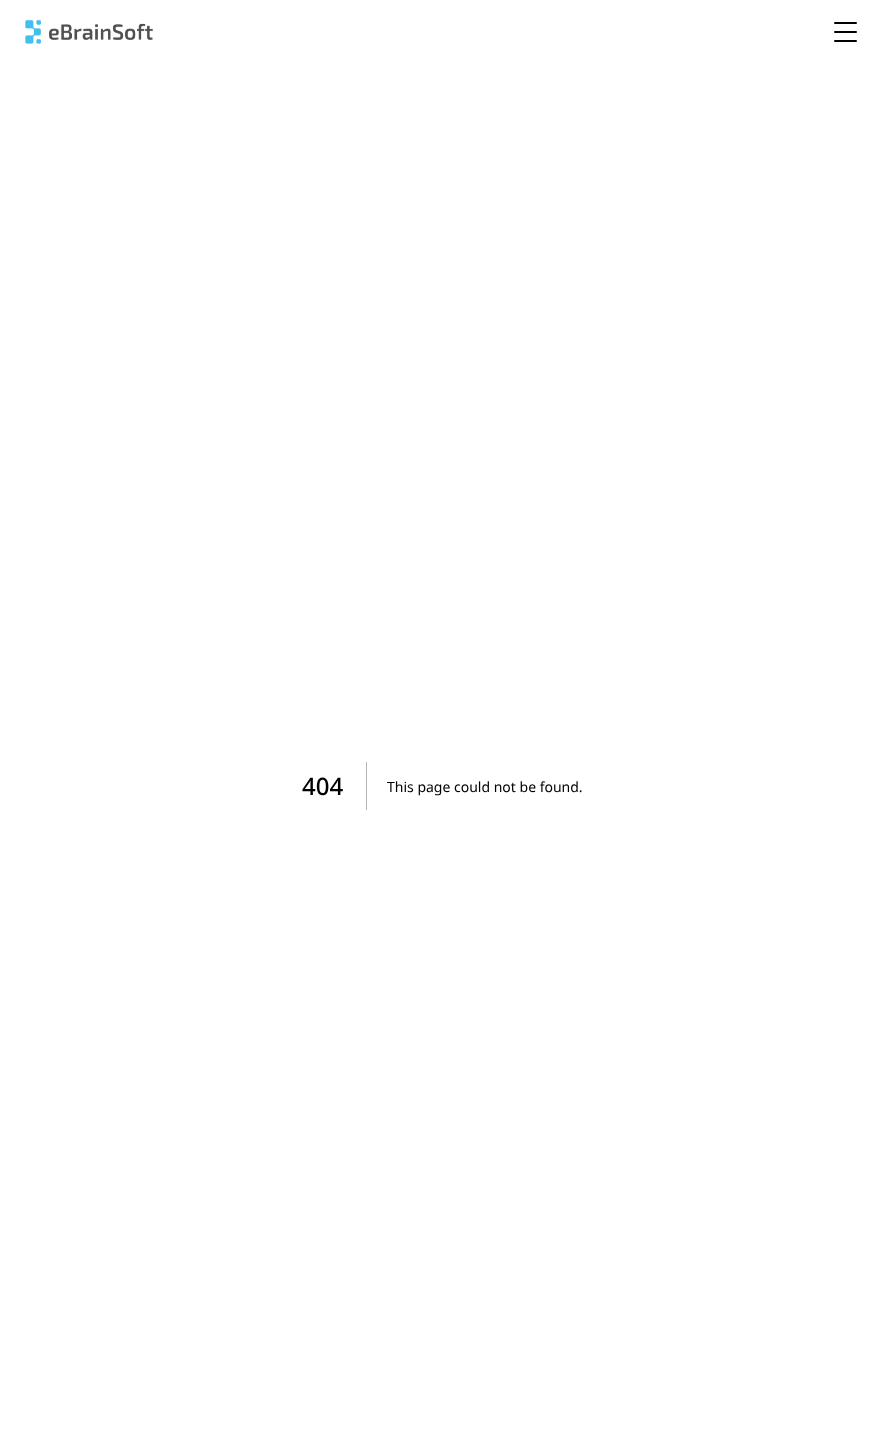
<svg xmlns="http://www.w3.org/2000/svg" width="884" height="1443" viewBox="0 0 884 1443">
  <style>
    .t1 { font: 500 24px Noto Sans; fill: #000; }
    .t2 { font: 14px Noto Sans; fill: #000; }
  </style>
  <rect width="100%" height="100%" fill="#fff"/>
  <image x="25" y="19" width="128" height="25" href="images/1.png"/>
  <rect x="834" y="22" width="23" height="2" rx="1" fill="#000"/>
  <rect x="834" y="31" width="23" height="2" rx="1" fill="#000"/>
  <rect x="834" y="40" width="23" height="2" rx="1" fill="#000"/>
  <rect x="366" y="762" width="1" height="48" fill="#b3b3b3"/>
  <text x="302" y="795" class="t1">404</text>
  <text x="387" y="792" class="t2">This page could not be found.</text>
</svg>
